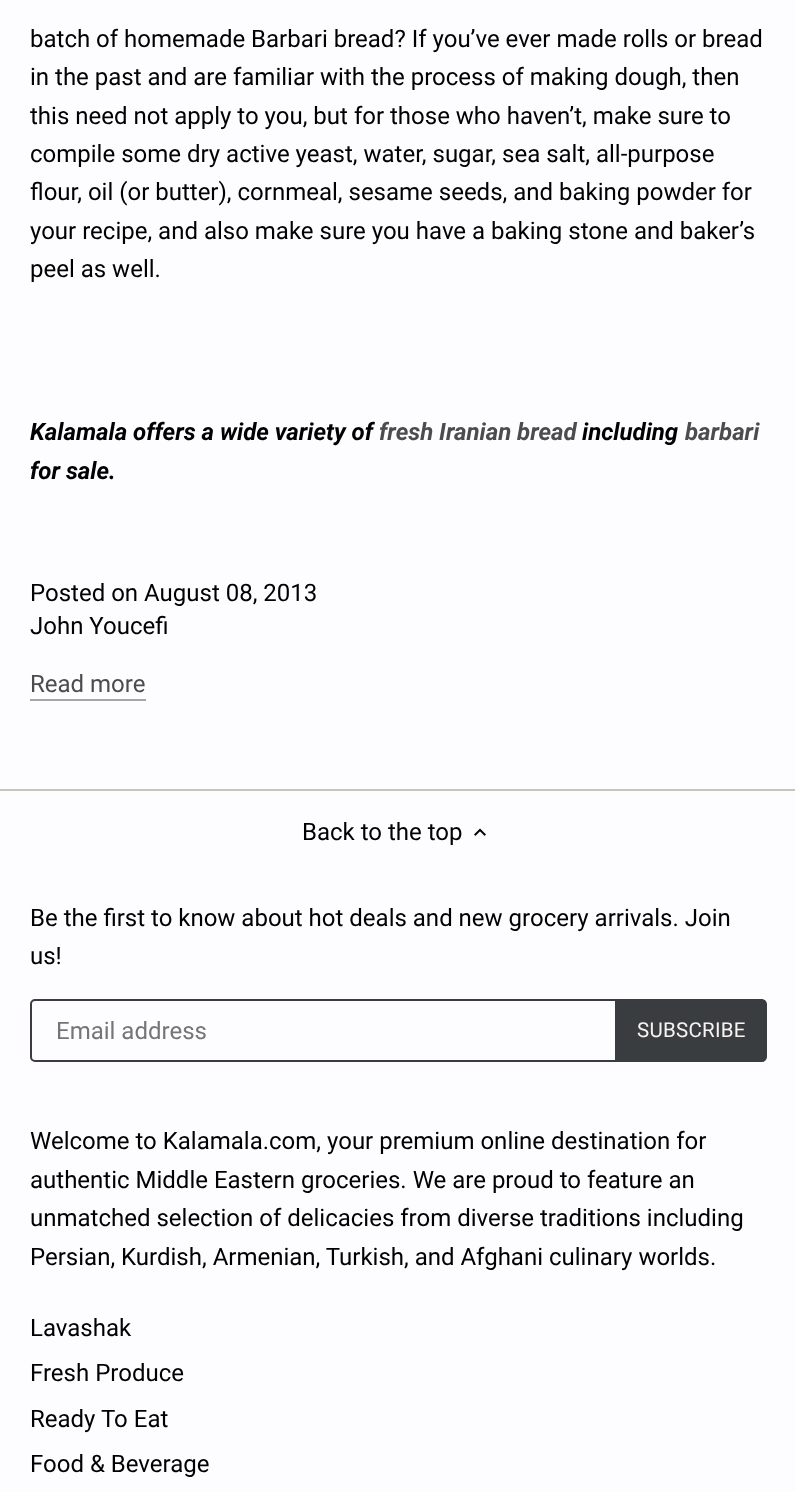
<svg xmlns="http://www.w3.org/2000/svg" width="795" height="1492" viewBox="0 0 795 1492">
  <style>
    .t1 { font: 24px Roboto; fill: #000; }
    .t2 { font: italic bold 24px Roboto; fill: #000; }
    .t3 { font: italic bold 24px Roboto; fill: #4c4c4c; }
    .t4 { font: 24px Roboto; fill: #4c4c4c; }
    .t5 { font: 24px Roboto; fill: #757575; }
    .t6 { font: 20.5px Roboto; letter-spacing: 0.25px; fill: #f9f2f2; }
  </style>
  <rect width="100%" height="100%" fill="#fdfdff"/>
  <text x="30" y="47" class="t1">batch of homemade Barbari bread? If you’ve ever made rolls or bread</text>
  <text x="30" y="85" class="t1">in the past and are familiar with the process of making dough, then</text>
  <text x="30" y="124" class="t1">this need not apply to you, but for those who haven’t, make sure to</text>
  <text x="30" y="162" class="t1">compile some dry active yeast, water, sugar, sea salt, all-purpose</text>
  <text x="30" y="200" class="t1">flour, oil (or butter), cornmeal, sesame seeds, and baking powder for</text>
  <text x="30" y="239" class="t1">your recipe, and also make sure you have a baking stone and baker’s</text>
  <text x="30" y="277" class="t1">peel as well.</text>
  <text x="30" y="440" class="t2">Kalamala offers a wide variety of</text>
  <text x="379" y="440" class="t3">fresh Iranian bread</text>
  <text x="582" y="440" class="t2">including</text>
  <text x="685" y="440" class="t3">barbari</text>
  <text x="30" y="479" class="t2">for sale.</text>
  <text x="30" y="601" class="t1">Posted on August 08, 2013</text>
  <text x="30" y="634" class="t1">John Youcefi</text>
  <text x="30" y="692" class="t4">Read more</text>
  <rect x="30" y="699" width="116" height="2" fill="#a6a6a6"/>
  <rect x="0" y="789" width="795" height="2" fill="#c6c5b9"/>
  <text x="302" y="840" class="t1">Back to the top</text>
  <image x="474" y="828" width="12" height="8" href="images/1.png"/>
  <text x="30" y="926" class="t1">Be the first to know about hot deals and new grocery arrivals. Join</text>
  <text x="30" y="964" class="t1">us!</text>
  <rect x="31" y="1000" width="733" height="61" rx="4" fill="none" stroke="#393d3f" stroke-width="2"/>
  <text x="56" y="1039" class="t5">Email address</text>
  <path d="M616 1000H762C764 1000 766 1002 766 1004V1057C766 1059 764 1061 762 1061H616Z" fill="#393d3f" stroke="#393d3f" stroke-width="2"/>
  <text x="637" y="1037" class="t6">SUBSCRIBE</text>
  <text x="30" y="1149" class="t1">Welcome to Kalamala.com, your premium online destination for</text>
  <text x="30" y="1188" class="t1">authentic Middle Eastern groceries. We are proud to feature an</text>
  <text x="30" y="1226" class="t1">unmatched selection of delicacies from diverse traditions including</text>
  <text x="30" y="1265" class="t1">Persian, Kurdish, Armenian, Turkish, and Afghani culinary worlds.</text>
  <text x="30" y="1336" class="t1">Lavashak</text>
  <text x="30" y="1381" class="t1">Fresh Produce</text>
  <text x="30" y="1427" class="t1">Ready To Eat</text>
  <text x="30" y="1472" class="t1">Food &amp; Beverage</text>
</svg>
